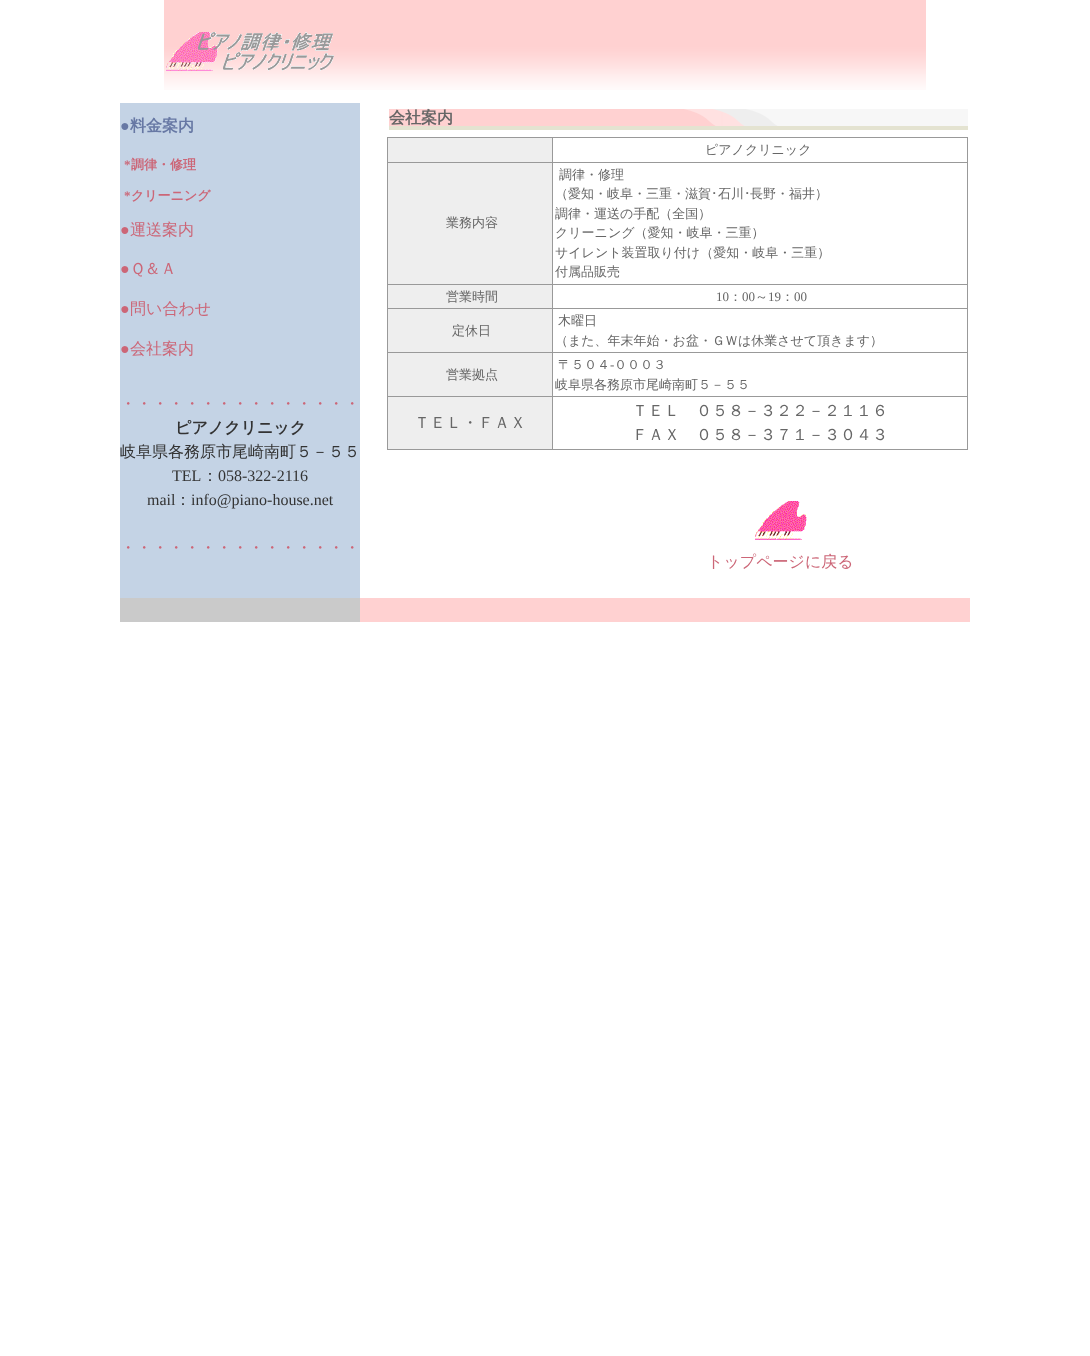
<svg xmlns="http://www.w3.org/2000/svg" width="1090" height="1356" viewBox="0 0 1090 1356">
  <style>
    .t1 { font: bold 16px Liberation Serif; fill: #6778a4; }
    .t2 { font: bold 16px WenQuanYi Zen Hei; fill: #6778a4; }
    .t3 { font: bold 13px Liberation Serif; fill: #c67; }
    .t4 { font: bold 13px WenQuanYi Zen Hei; fill: #c67; }
    .t5 { font: 16px Liberation Serif; fill: #c67; }
    .t6 { font: 500 16px WenQuanYi Zen Hei; fill: #c67; }
    .t7 { font: bold 16px WenQuanYi Zen Hei; fill: #333; }
    .t8 { font: 500 16px WenQuanYi Zen Hei; fill: #333; }
    .t9 { font: 16px Liberation Serif; fill: #333; }
    .t10 { font: bold 16px WenQuanYi Zen Hei; fill: #666; }
    .t11 { font: 500 13px WenQuanYi Zen Hei; fill: #666; }
    .t12 { font: 13px IPAPGothic; fill: #666; }
    .t13 { font: 13px Liberation Serif; fill: #666; }
    .t14 { font: 500 16px WenQuanYi Zen Hei; fill: #666; }
  </style>
  <rect width="100%" height="100%" fill="#fff"/>
  <image x="164" y="0" width="762" height="90" href="images/1.png"/>
  <image x="166" y="32" width="168" height="39" href="images/2.png"/>
  <rect x="120" y="103" width="240" height="495" fill="#c4d3e5"/>
  <text x="120" y="131" class="t1">●</text>
  <text x="130" y="131" class="t2">料金案内</text>
  <text x="124" y="169" class="t3">*</text>
  <text x="131" y="169" class="t4">調律・修理</text>
  <text x="124" y="200" class="t3">*</text>
  <text x="131" y="200" class="t4">クリーニング</text>
  <text x="120" y="235" class="t5">●</text>
  <text x="130" y="235" class="t6">運送案内</text>
  <text x="120" y="274" class="t5">●</text>
  <text x="130" y="274" class="t6">Ｑ＆Ａ</text>
  <text x="120" y="314" class="t5">●</text>
  <text x="130" y="314" class="t6">問い合わせ</text>
  <text x="120" y="354" class="t5">●</text>
  <text x="130" y="354" class="t6">会社案内</text>
  <text x="120" y="409" class="t6">・・・・・・・・・・・・・・・</text>
  <text x="175" y="433" class="t7">ピアノクリニック</text>
  <text x="120" y="457" class="t8">岐阜県各務原市尾崎南町５－５５</text>
  <text x="172" y="481" class="t9">TEL</text>
  <text x="202" y="481" class="t8">：</text>
  <text x="218" y="481" class="t9">058-322-2116</text>
  <text x="147" y="505" class="t9">mail</text>
  <text x="175" y="505" class="t8">：</text>
  <text x="191" y="505" class="t9">info@piano-house.net</text>
  <text x="120" y="553" class="t6">・・・・・・・・・・・・・・・</text>
  <image x="389" y="109" width="579" height="21" href="images/3.png"/>
  <text x="389" y="123" class="t10">会社案内</text>
  <rect x="387" y="137" width="581" height="1" fill="#999"/>
  <rect x="387" y="137" width="1" height="313" fill="#999"/>
  <rect x="388" y="138" width="164" height="24" fill="#eee"/>
  <rect x="552" y="138" width="1" height="312" fill="#999"/>
  <rect x="388" y="162" width="165" height="1" fill="#999"/>
  <rect x="967" y="138" width="1" height="312" fill="#999"/>
  <rect x="553" y="162" width="415" height="1" fill="#999"/>
  <text x="705" y="154" class="t11">ピアノクリニック</text>
  <rect x="388" y="163" width="164" height="121" fill="#eee"/>
  <rect x="388" y="284" width="580" height="1" fill="#999"/>
  <text x="446" y="227" class="t11">業務内容</text>
  <text x="559" y="179" class="t11">調律・修理</text>
  <text x="555" y="198" class="t11">（愛知・岐阜・三重・滋賀</text>
  <text x="711" y="198" class="t12">･</text>
  <text x="718" y="198" class="t11">石川</text>
  <text x="744" y="198" class="t12">･</text>
  <text x="750" y="198" class="t11">長野・福井）</text>
  <text x="555" y="218" class="t11">調律・運送の手配（全国）</text>
  <text x="555" y="237" class="t11">クリーニング（愛知・岐阜・三重）</text>
  <text x="555" y="257" class="t11">サイレント装置取り付け（愛知・岐阜・三重）</text>
  <text x="555" y="276" class="t11">付属品販売</text>
  <rect x="388" y="285" width="164" height="23" fill="#eee"/>
  <rect x="388" y="308" width="580" height="1" fill="#999"/>
  <text x="446" y="301" class="t11">営業時間</text>
  <text x="716" y="301" class="t13">10</text>
  <text x="729" y="301" class="t11">：</text>
  <text x="742" y="301" class="t13">00</text>
  <text x="755" y="301" class="t11">～</text>
  <text x="768" y="301" class="t13">19</text>
  <text x="781" y="301" class="t11">：</text>
  <text x="794" y="301" class="t13">00</text>
  <rect x="388" y="309" width="164" height="43" fill="#eee"/>
  <rect x="388" y="352" width="580" height="1" fill="#999"/>
  <text x="452" y="335" class="t11">定休日</text>
  <text x="558" y="325" class="t11">木曜日</text>
  <text x="555" y="345" class="t11">（また、年末年始・お盆・ＧＷは休業させて頂きます）</text>
  <rect x="388" y="353" width="164" height="43" fill="#eee"/>
  <rect x="388" y="396" width="580" height="1" fill="#999"/>
  <text x="446" y="379" class="t11">営業拠点</text>
  <text x="558" y="369" class="t11">〒５０４</text>
  <text x="610" y="369" class="t13">-</text>
  <text x="614" y="369" class="t11">０００３</text>
  <text x="555" y="389" class="t11">岐阜県各務原市尾崎南町５－５５</text>
  <rect x="388" y="397" width="164" height="52" fill="#eee"/>
  <rect x="388" y="449" width="580" height="1" fill="#999"/>
  <text x="414" y="428" class="t14">ＴＥＬ・ＦＡＸ</text>
  <text x="632" y="416" class="t14">ＴＥＬ　０５８－３２２－２１１６</text>
  <text x="632" y="440" class="t14">ＦＡＸ　０５８－３７１－３０４３</text>
  <image x="755" y="501" width="52" height="39" href="images/4.png"/>
  <text x="707" y="567" class="t6">トップページに戻る</text>
  <rect x="120" y="598" width="240" height="24" fill="#cacaca"/>
  <rect x="360" y="598" width="610" height="24" fill="#ffd1d1"/>
</svg>
